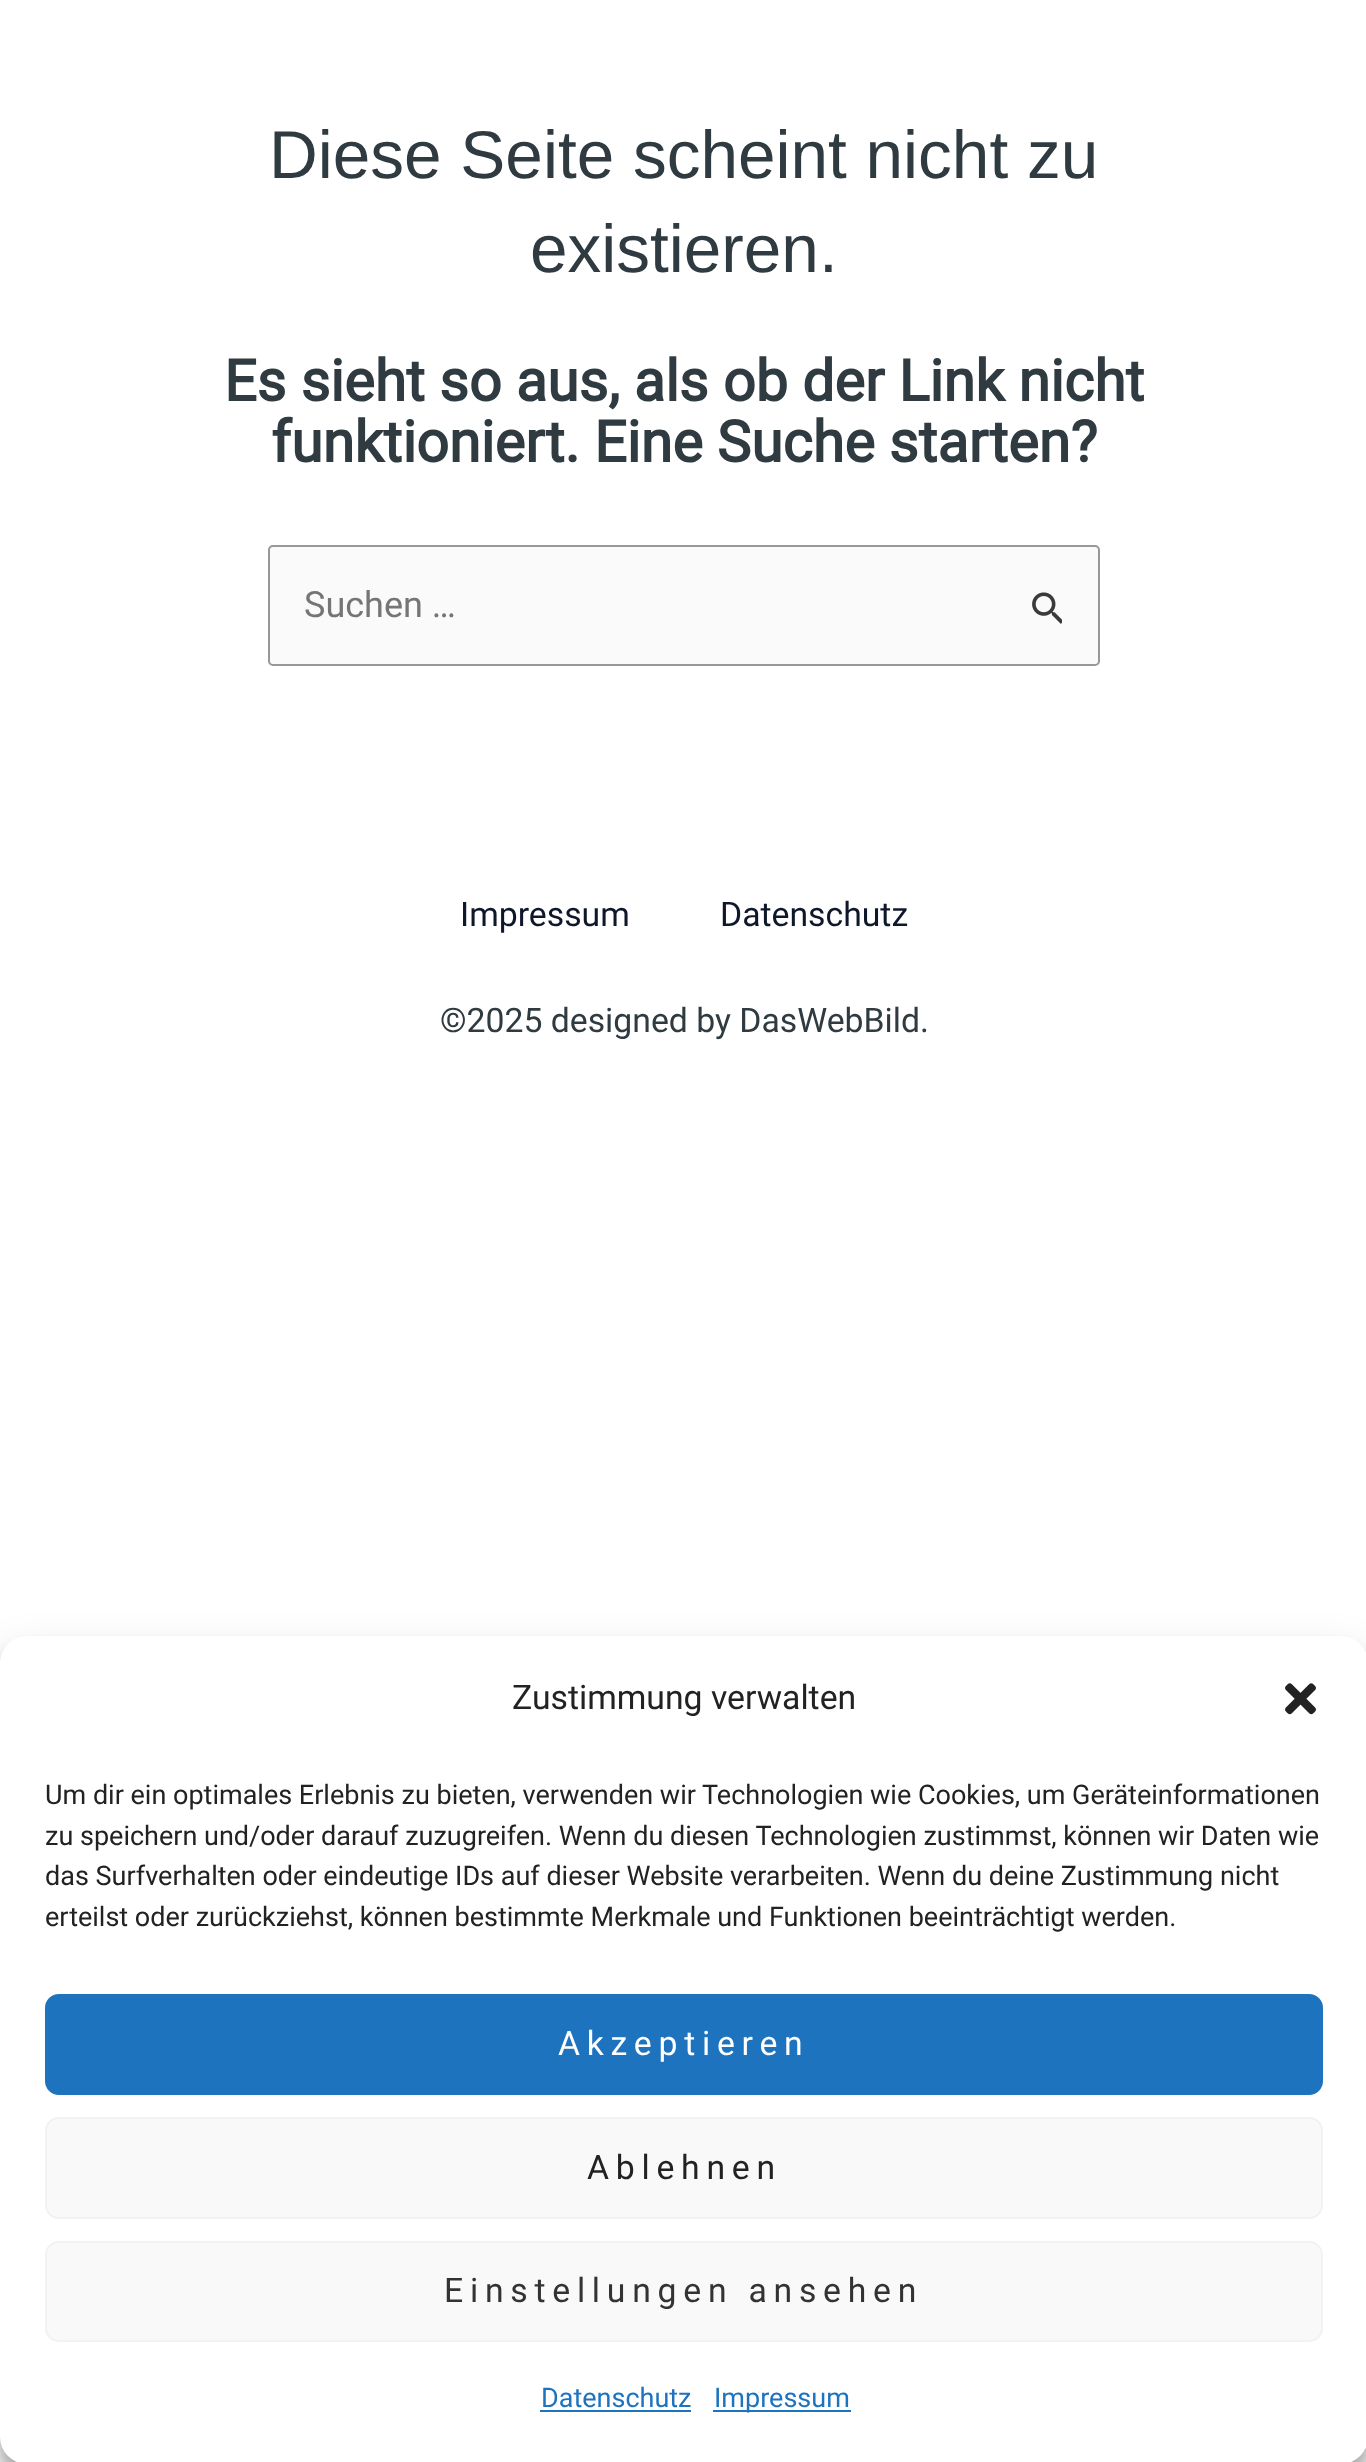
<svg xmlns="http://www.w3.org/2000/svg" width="1366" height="2462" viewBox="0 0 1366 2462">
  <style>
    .t1 { font: 67.5px Liberation Sans; fill: #2f3b40; }
    .t2 { font: bold 57.4px Roboto; fill: #2f3b40; }
    .t3 { font: 36px Roboto; fill: #757575; }
    .t4 { font: 33.75px Roboto; fill: #0f172a; }
    .t5 { font: 33.75px Roboto; fill: #2f3b40; }
    .t6 { font: 33.75px Roboto; fill: #222; }
    .t7 { font: 27px Roboto; fill: #222; }
    .t8 { font: 33.75px Roboto; letter-spacing: 6.75px; fill: #fff; }
    .t9 { font: 33.75px Roboto; letter-spacing: 6.75px; fill: #222; }
    .t10 { font: 33.75px Roboto; letter-spacing: 6.75px; fill: #333; }
    .t11 { font: 27px Roboto; fill: #1e73be; }
  </style>
  <rect width="100%" height="100%" fill="#fff"/>
  <text x="269" y="178" class="t1">Diese Seite scheint nicht zu</text>
  <text x="530" y="272" class="t1">existieren.</text>
  <text x="224" y="401" class="t2">Es sieht so aus, als ob der Link nicht</text>
  <text x="271" y="462" class="t2">funktioniert. Eine Suche starten?</text>
  <rect x="269" y="546" width="830" height="119" rx="4" fill="#fafafa" stroke="#989898" stroke-width="2"/>
  <text x="304" y="617" class="t3">Suchen …</text>
  <image x="1032" y="592" width="30" height="32" href="images/1.png"/>
  <text x="460" y="926" class="t4">Impressum</text>
  <text x="720" y="926" class="t4">Datenschutz</text>
  <text x="440" y="1032" class="t5">©2025 designed by DasWebBild.</text>
  <rect x="0" y="1649" width="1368" height="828" rx="27" fill="#0000003b" filter="blur(7px)"/>
  <rect x="0" y="1658" width="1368" height="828" rx="27" fill="#00000030" filter="blur(22.5px)"/>
  <rect x="0" y="1636" width="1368" height="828" rx="27" fill="#fff"/>
  <text x="512" y="1709" class="t6">Zustimmung verwalten</text>
  <image x="1285" y="1683" width="31" height="32" href="images/2.png"/>
  <text x="45" y="1804" class="t7">Um dir ein optimales Erlebnis zu bieten, verwenden wir Technologien wie Cookies, um Geräteinformationen</text>
  <text x="45" y="1845" class="t7">zu speichern und/oder darauf zuzugreifen. Wenn du diesen Technologien zustimmst, können wir Daten wie</text>
  <text x="45" y="1885" class="t7">das Surfverhalten oder eindeutige IDs auf dieser Website verarbeiten. Wenn du deine Zustimmung nicht</text>
  <text x="45" y="1926" class="t7">erteilst oder zurückziehst, können bestimmte Merkmale und Funktionen beeinträchtigt werden.</text>
  <rect x="46" y="1995" width="1276" height="99" rx="13" fill="#1e73be" stroke="#1e73be" stroke-width="2"/>
  <text x="558" y="2055" class="t8">Akzeptieren</text>
  <rect x="46" y="2118" width="1276" height="100" rx="13" fill="#f9f9f9" stroke="#f2f2f2" stroke-width="2"/>
  <text x="587" y="2179" class="t9">Ablehnen</text>
  <rect x="46" y="2242" width="1276" height="99" rx="13" fill="#f9f9f9" stroke="#f2f2f2" stroke-width="2"/>
  <text x="444" y="2302" class="t10">Einstellungen ansehen</text>
  <text x="541" y="2407" class="t11">Datenschutz</text>
  <rect x="540" y="2410" width="151" height="2" fill="#1e73be"/>
  <rect x="713" y="2410" width="138" height="2" fill="#1e73be"/>
  <text x="714" y="2407" class="t11">Impressum</text>
</svg>
